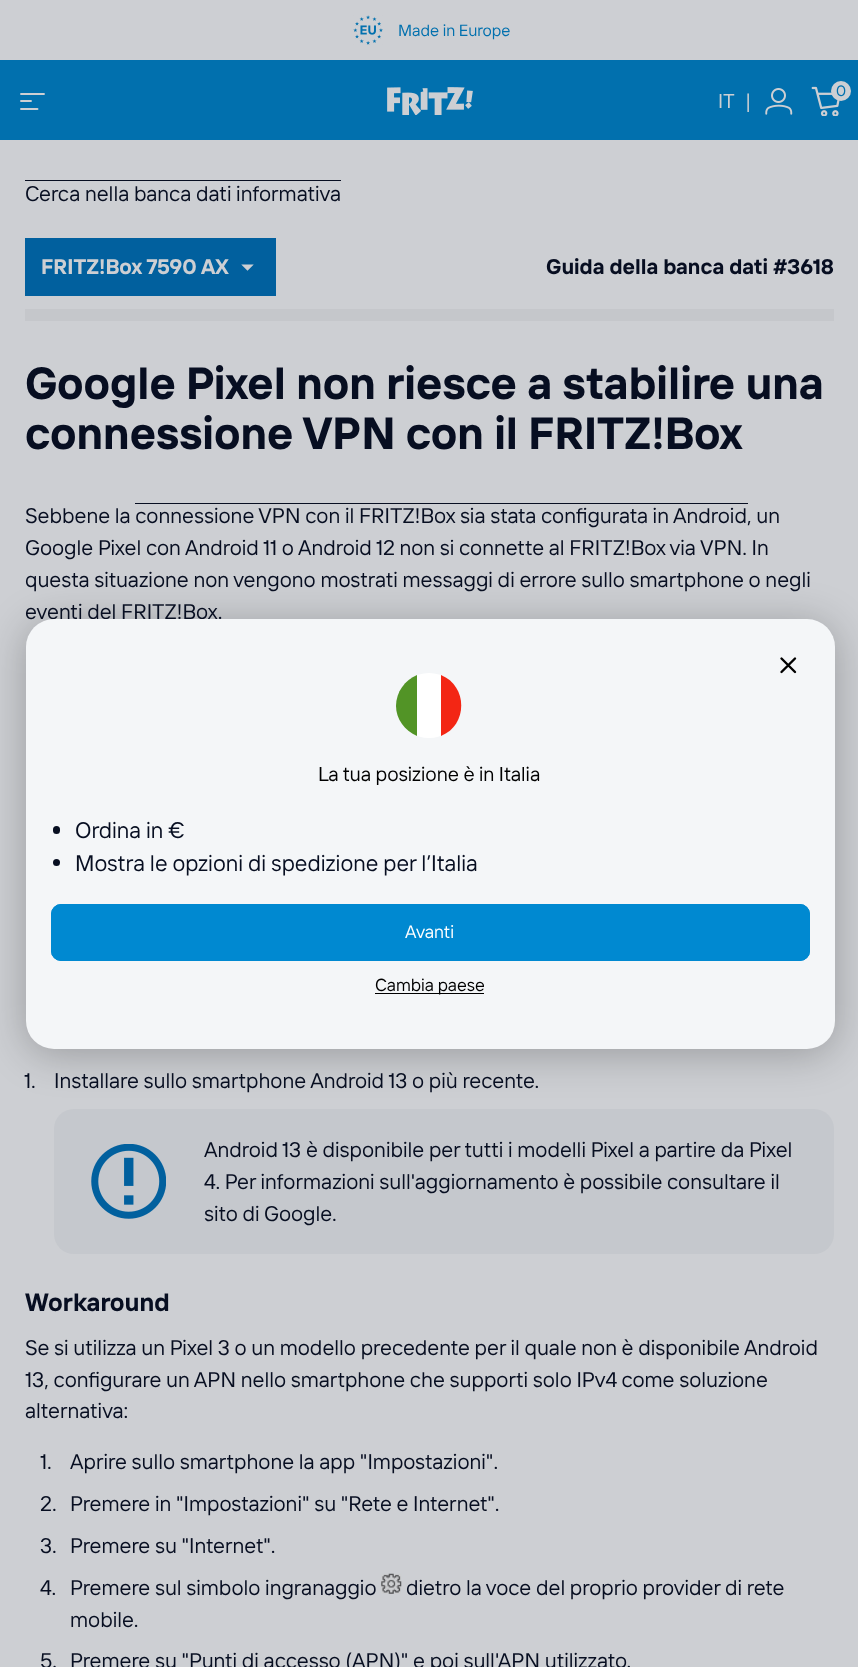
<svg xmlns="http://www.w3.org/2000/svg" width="858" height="1667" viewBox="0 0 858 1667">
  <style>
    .t1 { font: 16.25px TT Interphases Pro; fill: #0170ae; }
    .t2 { font: 15px TT Interphases Pro; fill: #0170ae; }
    .t3 { font: 20px TT Interphases Pro; fill: #cdcfd3; }
    .t4 { font: 21.25px TT Interphases Pro; fill: #070e21; }
    .t5 { font: 20px TT Interphases Pro; fill: #000; }
    .t6 { font: 22.5px TT Interphases Pro; fill: #070e21; }
    .t7 { font: 18px TT Interphases Pro; fill: #fff; }
    .t8 { font: 17.5px TT Interphases Pro; fill: #000; }
    .t9 { font: bold 21.25px TT Interphases Pro; fill: #cdcfd3; }
    .t10 { font: bold 21.25px TT Interphases Pro; fill: #070e21; }
    .t11 { font: bold 45px TT Interphases Pro; fill: #070e21; }
    .t12 { font: bold 25px TT Interphases Pro; fill: #070e21; }
  </style>
  <rect width="100%" height="100%" fill="#cdcfd3"/>
  <image x="353" y="15" width="30" height="30" href="images/1.png"/>
  <text x="398" y="36" class="t1">Made in Europe</text>
  <rect x="0" y="60" width="858" height="80" fill="#0170ae"/>
  <path d="M21 94H44M21 101H31M21 109H37.5" fill="none" stroke="#cdcfd3" stroke-width="1.9" stroke-linecap="round"/>
  <image x="387" y="87" width="86" height="28" href="images/2.png"/>
  <image x="765" y="88" width="28" height="27" href="images/3.png"/>
  <image x="811" y="86" width="29" height="30" href="images/4.png"/>
  <circle cx="841" cy="91" r="10" fill="#cdcfd3"/>
  <text x="836" y="96" class="t2">0</text>
  <text x="718" y="108" class="t3">IT</text>
  <text x="745" y="108" class="t3">|</text>
  <rect x="54" y="1109" width="780" height="145" rx="20" fill="#c5c8cd"/>
  <rect x="26" y="624" width="809" height="430" rx="28" fill="#00000040" filter="blur(21px)"/>
  <text x="25" y="619" class="t4">eventi del FRITZ!Box.</text>
  <rect x="26" y="619" width="809" height="430" rx="28" fill="#f4f6f8"/>
  <path d="M781.5 658.5L795 672M795 658.5L781.5 672" fill="none" stroke="#000" stroke-width="2.4" stroke-linecap="round"/>
  <path d="M410 732V679C421 671 437 671 448 679V732C437 740 421 740 410 732Z" fill="#fff"/>
  <path d="M441 736V675C468 686 468 725 441 736Z" fill="#f32614"/>
  <path d="M396 706C396 692 405 680 417 675V736C405 731 396 719 396 706Z" fill="#529426"/>
  <text x="318" y="781" class="t5">La tua posizione è in Italia</text>
  <rect x="53" y="826" width="7" height="8" rx="3.5" fill="#070e21"/>
  <text x="75" y="838" class="t6">Ordina in €</text>
  <circle cx="56.5" cy="862.5" r="3.5" fill="#070e21"/>
  <text x="75" y="871" class="t6">Mostra le opzioni di spedizione per l’Italia</text>
  <rect x="51" y="904" width="759" height="57" rx="10" fill="#0089d1"/>
  <rect x="51.5" y="904.5" width="758" height="56" rx="9.5" fill="none" stroke="#0089d1"/>
  <text x="405" y="938" class="t7">Avanti</text>
  <rect x="375" y="993" width="109" height="1" fill="#000"/>
  <text x="375" y="991" class="t8">Cambia paese</text>
  <text x="25" y="201" class="t4">Cerca nella banca dati informativa</text>
  <rect x="25" y="180" width="316" height="1" fill="#070e21"/>
  <rect x="25" y="309" width="809" height="12" fill="#c5c7cb"/>
  <rect x="25" y="238" width="251" height="58" fill="#01609e"/>
  <text x="41" y="274" class="t9">FRITZ!Box 7590 AX</text>
  <image x="241" y="264" width="13" height="7" href="images/5.png"/>
  <text x="546" y="274" class="t10">Guida della banca dati #3618</text>
  <text x="25" y="399" class="t11">Google Pixel non riesce a stabilire una</text>
  <text x="25" y="449" class="t11">connessione VPN con il FRITZ!Box</text>
  <rect x="135" y="503" width="613" height="1" fill="#070e21"/>
  <text x="25" y="523" class="t4">Sebbene la connessione VPN con il FRITZ!Box sia stata configurata in Android</text>
  <text x="747" y="523" class="t4">, un</text>
  <text x="25" y="555" class="t4">Google Pixel con Android 11 o Android 12 non si connette al FRITZ!Box via VPN. In</text>
  <text x="25" y="587" class="t4">questa situazione non vengono mostrati messaggi di errore sullo smartphone o negli</text>
  <text x="24" y="1088" class="t4">1.</text>
  <text x="54" y="1088" class="t4">Installare sullo smartphone Android 13 o più recente.</text>
  <image x="91" y="1144" width="75" height="75" href="images/6.png"/>
  <text x="204" y="1157" class="t4">Android 13 è disponibile per tutti i modelli Pixel a partire da Pixel</text>
  <text x="204" y="1189" class="t4">4. Per informazioni sull'aggiornamento è possibile consultare il</text>
  <text x="204" y="1221" class="t4">sito di</text>
  <text x="264" y="1221" class="t4">Google</text>
  <text x="332" y="1221" class="t4">.</text>
  <text x="25" y="1311" class="t12">Workaround</text>
  <text x="25" y="1355" class="t4">Se si utilizza un Pixel 3 o un modello precedente per il quale non è disponibile Android</text>
  <text x="25" y="1387" class="t4">13, configurare un APN nello smartphone che supporti solo IPv4 come soluzione</text>
  <text x="25" y="1418" class="t4">alternativa:</text>
  <text x="40" y="1469" class="t4">1.</text>
  <text x="70" y="1469" class="t4">Aprire sullo smartphone la app "Impostazioni".</text>
  <text x="40" y="1511" class="t4">2.</text>
  <text x="70" y="1511" class="t4">Premere in "Impostazioni" su "Rete e Internet".</text>
  <text x="40" y="1553" class="t4">3.</text>
  <text x="70" y="1553" class="t4">Premere su "Internet".</text>
  <text x="40" y="1595" class="t4">4.</text>
  <text x="70" y="1595" class="t4">Premere sul simbolo ingranaggio</text>
  <image x="381" y="1573" width="21" height="21" href="images/7.png"/>
  <text x="406" y="1595" class="t4">dietro la voce del proprio provider di rete</text>
  <text x="70" y="1627" class="t4">mobile.</text>
  <text x="40" y="1668" class="t4">5.</text>
  <text x="70" y="1668" class="t4">Premere su "Punti di accesso (APN)" e poi sull'APN utilizzato.</text>
</svg>
